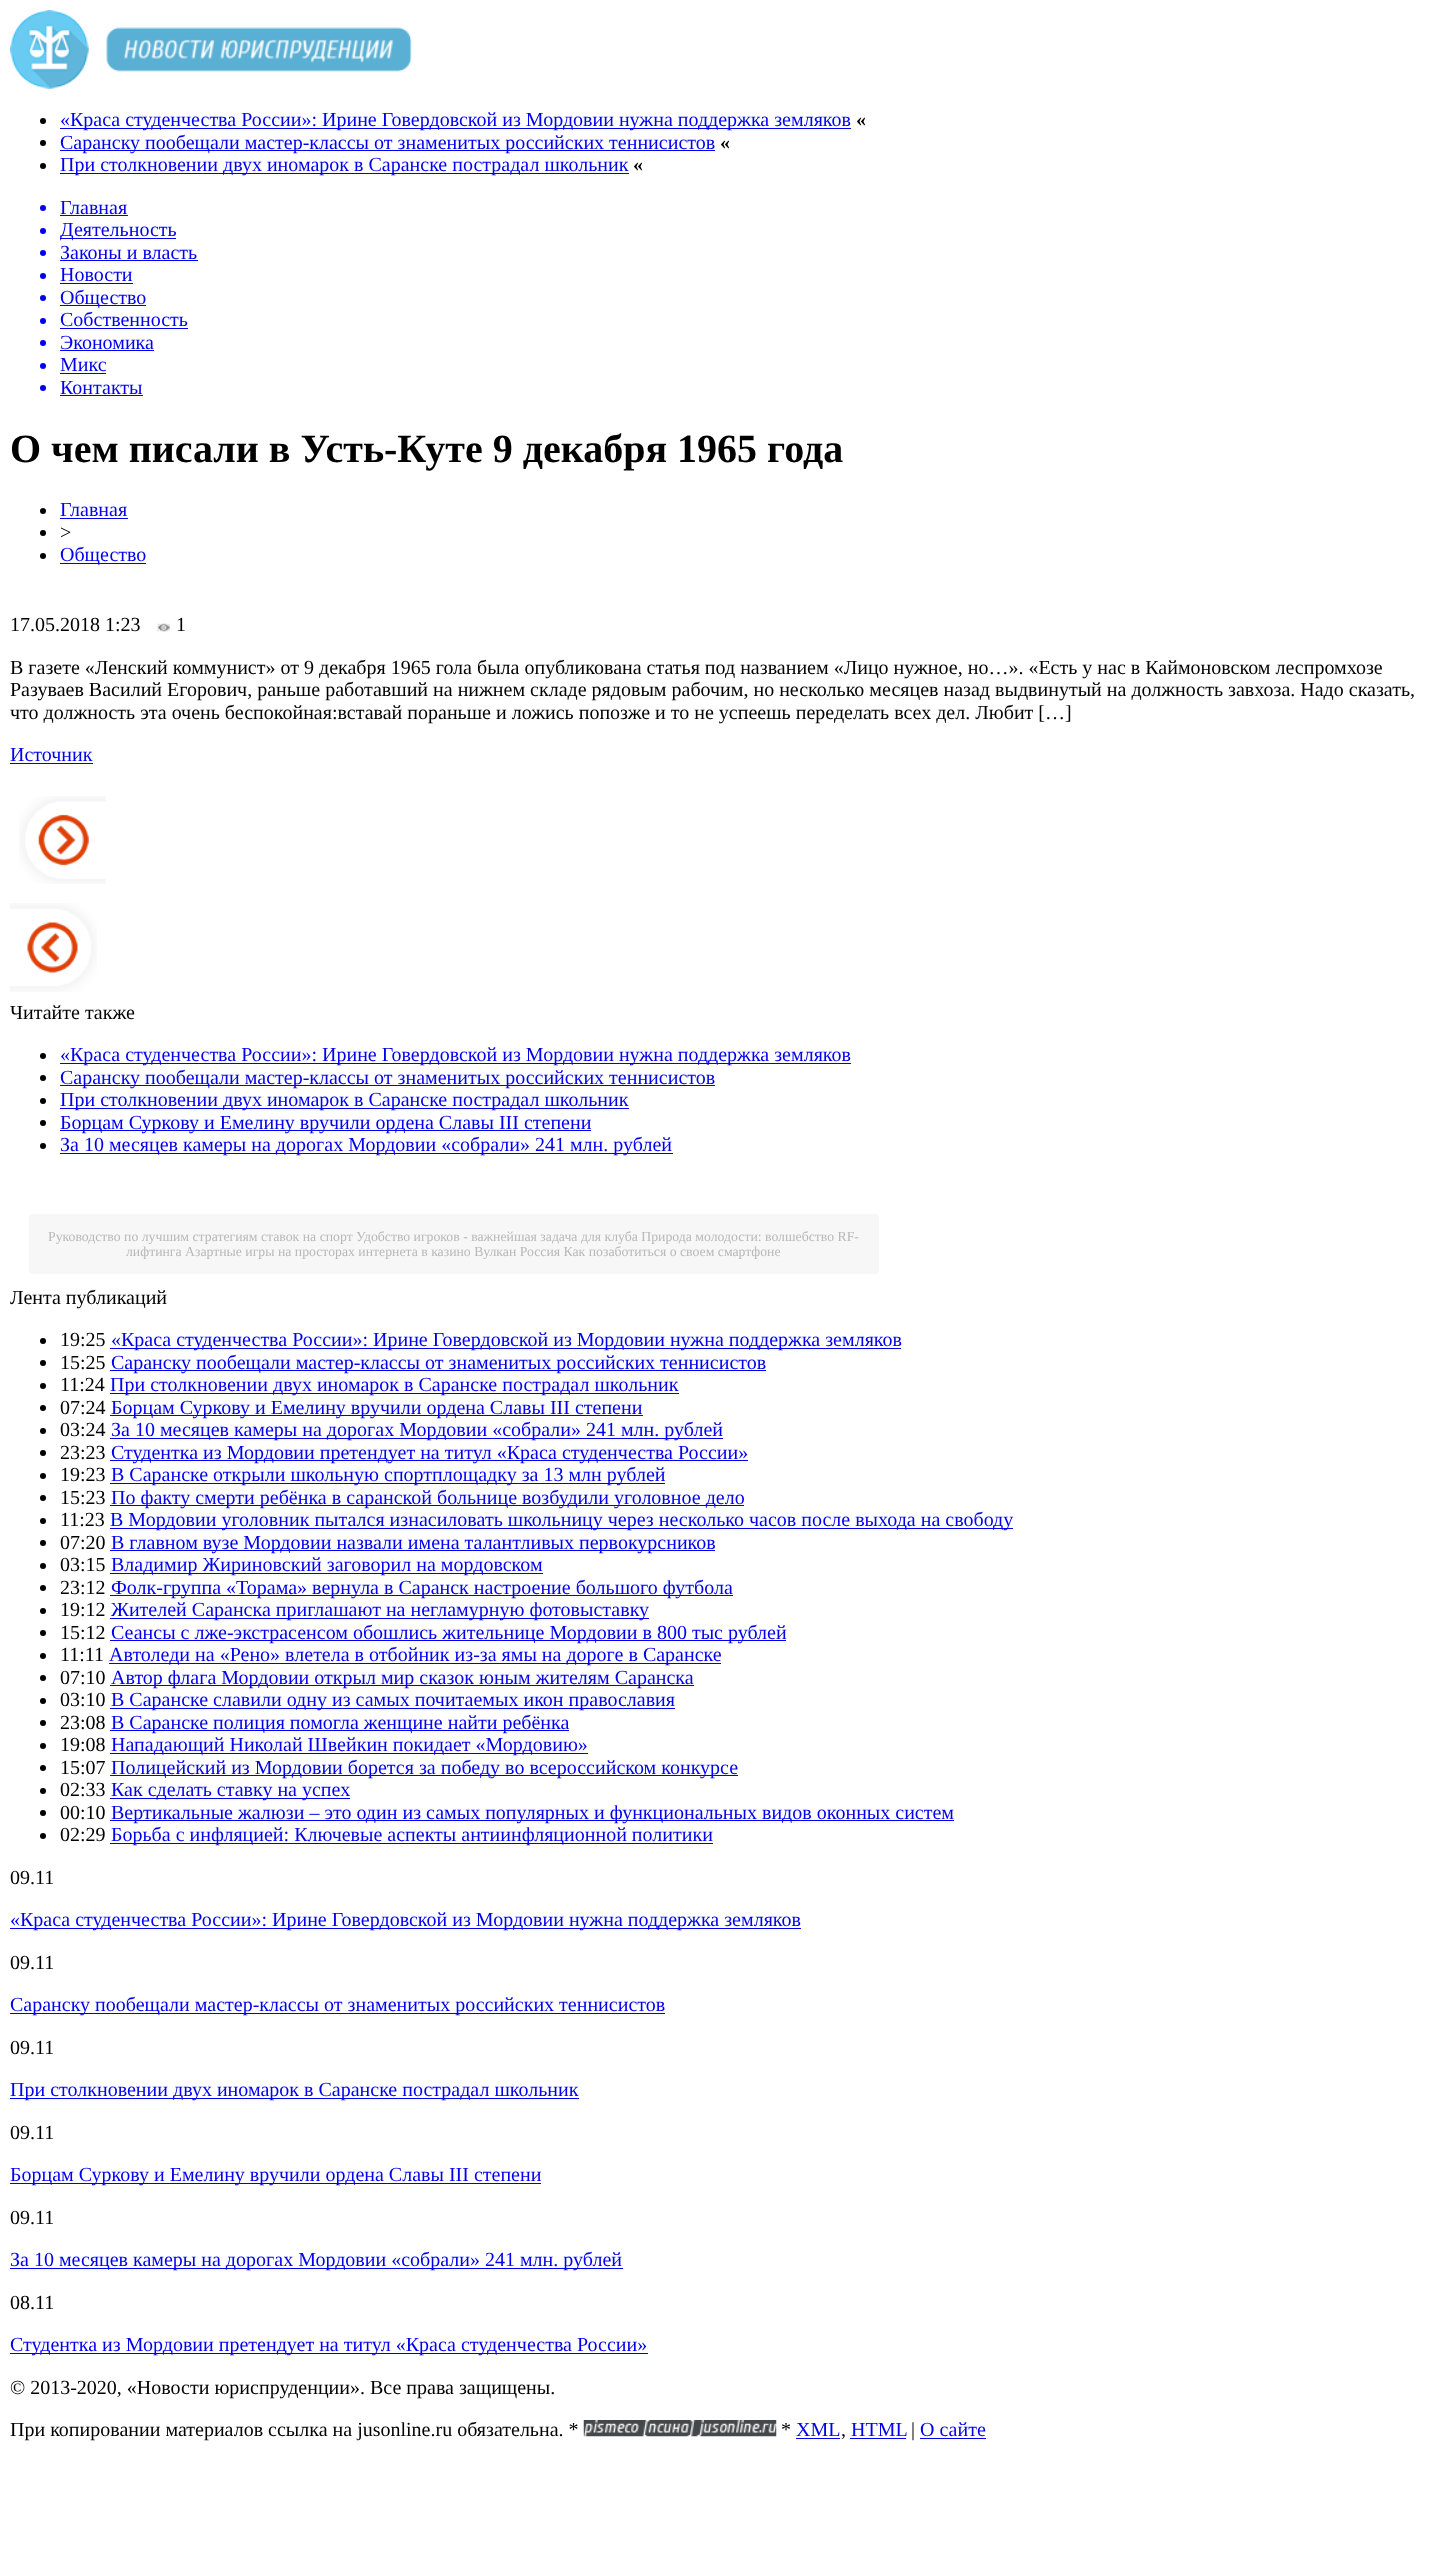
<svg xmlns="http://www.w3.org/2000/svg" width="1429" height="2558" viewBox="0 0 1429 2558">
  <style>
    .t1 { font: 20px Liberation Serif; fill: #00e; }
    .t2 { font: bold 20px Liberation Serif; fill: #000; }
    .t3 { font: bold 40px Liberation Serif; fill: #000; }
    .t4 { font: 20px Liberation Serif; fill: #000; }
    .t5 { font: 13.75px Liberation Serif; fill: #b8b8b8; }
  </style>
  <rect width="100%" height="100%" fill="#fff"/>
  <image x="10" y="10" width="402" height="79" href="images/1.png"/>
  <circle cx="43" cy="121" r="3" fill="#000"/>
  <rect x="60" y="128" width="791" height="1" fill="#00e"/>
  <text x="60" y="126" class="t1">«Краса студенчества России»: Ирине Говердовской из Мордовии нужна поддержка земляков</text>
  <text x="856" y="126" class="t2">«</text>
  <circle cx="43" cy="143" r="3" fill="#000"/>
  <rect x="60" y="150" width="655" height="1" fill="#00e"/>
  <text x="60" y="149" class="t1">Саранску пообещали мастер-классы от знаменитых российских теннисистов</text>
  <text x="720" y="149" class="t2">«</text>
  <circle cx="43" cy="166" r="3" fill="#000"/>
  <rect x="60" y="173" width="569" height="1" fill="#00e"/>
  <text x="60" y="171" class="t1">При столкновении двух иномарок в Саранске пострадал школьник</text>
  <text x="633" y="171" class="t2">«</text>
  <circle cx="43" cy="208" r="3" fill="#00e"/>
  <text x="60" y="214" class="t1">Главная</text>
  <rect x="60" y="215" width="68" height="1" fill="#00e"/>
  <circle cx="43" cy="231" r="3" fill="#00e"/>
  <rect x="60" y="238" width="116" height="1" fill="#00e"/>
  <text x="60" y="236" class="t1">Деятельность</text>
  <circle cx="43" cy="253" r="3" fill="#00e"/>
  <text x="60" y="259" class="t1">Законы и власть</text>
  <rect x="60" y="260" width="138" height="1" fill="#00e"/>
  <circle cx="43" cy="276" r="3" fill="#00e"/>
  <text x="60" y="281" class="t1">Новости</text>
  <rect x="60" y="283" width="73" height="1" fill="#00e"/>
  <circle cx="43" cy="298" r="3" fill="#00e"/>
  <rect x="60" y="305" width="86" height="1" fill="#00e"/>
  <text x="60" y="304" class="t1">Общество</text>
  <circle cx="43" cy="321" r="3" fill="#00e"/>
  <text x="60" y="326" class="t1">Собственность</text>
  <rect x="60" y="328" width="128" height="1" fill="#00e"/>
  <circle cx="43" cy="343" r="3" fill="#00e"/>
  <text x="60" y="349" class="t1">Экономика</text>
  <rect x="60" y="350" width="94" height="1" fill="#00e"/>
  <circle cx="43" cy="366" r="3" fill="#00e"/>
  <text x="60" y="371" class="t1">Микс</text>
  <rect x="60" y="373" width="46" height="1" fill="#00e"/>
  <circle cx="43" cy="388" r="3" fill="#00e"/>
  <text x="60" y="394" class="t1">Контакты</text>
  <rect x="60" y="395" width="83" height="1" fill="#00e"/>
  <text x="10" y="462" class="t3">О чем писали в Усть-Куте 9 декабря 1965 года</text>
  <circle cx="43" cy="511" r="3" fill="#000"/>
  <text x="60" y="516" class="t1">Главная</text>
  <rect x="60" y="518" width="68" height="1" fill="#00e"/>
  <circle cx="43" cy="533" r="3" fill="#000"/>
  <text x="60" y="539" class="t4">&gt;</text>
  <circle cx="43" cy="556" r="3" fill="#000"/>
  <rect x="60" y="563" width="86" height="1" fill="#00e"/>
  <text x="60" y="561" class="t1">Общество</text>
  <text x="10" y="631" class="t4">17.05.2018 1:23</text>
  <image x="157" y="623" width="13" height="9" href="images/2.png"/>
  <text x="176" y="631" class="t4">1</text>
  <text x="10" y="674" class="t4">В газете «Ленский коммунист» от 9 декабря 1965 гола была опубликована статья под названием «Лицо нужное, но…». «Есть у нас в Каймоновском леспромхозе</text>
  <text x="10" y="696" class="t4">Разуваев Василий Егорович, раньше работавший на нижнем складе рядовым рабочим, но несколько месяцев назад выдвинутый на должность завхоза. Надо сказать,</text>
  <text x="10" y="719" class="t4">что должность эта очень беспокойная:вставай пораньше и ложись попозже и то не успеешь переделать всех дел. Любит […]</text>
  <text x="10" y="761" class="t1">Источник</text>
  <rect x="10" y="763" width="83" height="1" fill="#00e"/>
  <image x="19" y="796" width="87" height="88" href="images/3.png"/>
  <image x="10" y="903" width="87" height="89" href="images/4.png"/>
  <text x="10" y="1019" class="t4">Читайте также</text>
  <circle cx="43" cy="1056" r="3" fill="#000"/>
  <rect x="60" y="1063" width="791" height="1" fill="#00e"/>
  <text x="60" y="1061" class="t1">«Краса студенчества России»: Ирине Говердовской из Мордовии нужна поддержка земляков</text>
  <circle cx="43" cy="1078" r="3" fill="#000"/>
  <rect x="60" y="1085" width="655" height="1" fill="#00e"/>
  <text x="60" y="1084" class="t1">Саранску пообещали мастер-классы от знаменитых российских теннисистов</text>
  <circle cx="43" cy="1101" r="3" fill="#000"/>
  <rect x="60" y="1108" width="569" height="1" fill="#00e"/>
  <text x="60" y="1106" class="t1">При столкновении двух иномарок в Саранске пострадал школьник</text>
  <circle cx="43" cy="1123" r="3" fill="#000"/>
  <rect x="60" y="1130" width="531" height="1" fill="#00e"/>
  <text x="60" y="1129" class="t1">Борцам Суркову и Емелину вручили ордена Славы III степени</text>
  <circle cx="43" cy="1146" r="3" fill="#000"/>
  <rect x="60" y="1153" width="613" height="1" fill="#00e"/>
  <text x="60" y="1151" class="t1">За 10 месяцев камеры на дорогах Мордовии «собрали» 241 млн. рублей</text>
  <rect x="29" y="1214" width="850" height="60" rx="4" fill="#f7f7f7"/>
  <text x="48" y="1241" class="t5">Руководство по лучшим стратегиям ставок на спорт Удобство игроков - важнейшая задача для клуба Природа молодости: волшебство RF-</text>
  <text x="126" y="1256" class="t5">лифтинга Азартные игры на просторах интернета в казино Вулкан Россия Как позаботиться о своем смартфоне</text>
  <text x="10" y="1304" class="t4">Лента публикаций</text>
  <circle cx="43" cy="1341" r="3" fill="#000"/>
  <text x="60" y="1346" class="t4">19:25</text>
  <rect x="110" y="1348" width="791" height="1" fill="#00e"/>
  <text x="111" y="1346" class="t1">«Краса студенчества России»: Ирине Говердовской из Мордовии нужна поддержка земляков</text>
  <circle cx="43" cy="1363" r="3" fill="#000"/>
  <text x="60" y="1369" class="t4">15:25</text>
  <rect x="110" y="1370" width="656" height="1" fill="#00e"/>
  <text x="111" y="1369" class="t1">Саранску пообещали мастер-классы от знаменитых российских теннисистов</text>
  <circle cx="43" cy="1386" r="3" fill="#000"/>
  <text x="60" y="1391" class="t4">11:24</text>
  <rect x="110" y="1393" width="569" height="1" fill="#00e"/>
  <text x="110" y="1391" class="t1">При столкновении двух иномарок в Саранске пострадал школьник</text>
  <circle cx="43" cy="1408" r="3" fill="#000"/>
  <text x="60" y="1414" class="t4">07:24</text>
  <rect x="110" y="1415" width="533" height="1" fill="#00e"/>
  <text x="111" y="1414" class="t1">Борцам Суркову и Емелину вручили ордена Славы III степени</text>
  <circle cx="43" cy="1431" r="3" fill="#000"/>
  <text x="60" y="1436" class="t4">03:24</text>
  <rect x="110" y="1438" width="613" height="1" fill="#00e"/>
  <text x="111" y="1436" class="t1">За 10 месяцев камеры на дорогах Мордовии «собрали» 241 млн. рублей</text>
  <circle cx="43" cy="1453" r="3" fill="#000"/>
  <text x="60" y="1459" class="t4">23:23</text>
  <rect x="110" y="1460" width="638" height="1" fill="#00e"/>
  <text x="111" y="1459" class="t1">Студентка из Мордовии претендует на титул «Краса студенчества России»</text>
  <circle cx="43" cy="1476" r="3" fill="#000"/>
  <text x="60" y="1481" class="t4">19:23</text>
  <rect x="110" y="1483" width="555" height="1" fill="#00e"/>
  <text x="111" y="1481" class="t1">В Саранске открыли школьную спортплощадку за 13 млн рублей</text>
  <circle cx="43" cy="1498" r="3" fill="#000"/>
  <text x="60" y="1504" class="t4">15:23</text>
  <rect x="110" y="1505" width="634" height="1" fill="#00e"/>
  <text x="111" y="1504" class="t1">По факту смерти ребёнка в саранской больнице возбудили уголовное дело</text>
  <circle cx="43" cy="1521" r="3" fill="#000"/>
  <text x="60" y="1526" class="t4">11:23</text>
  <rect x="110" y="1528" width="903" height="1" fill="#00e"/>
  <text x="110" y="1526" class="t1">В Мордовии уголовник пытался изнасиловать школьницу через несколько часов после выхода на свободу</text>
  <circle cx="43" cy="1543" r="3" fill="#000"/>
  <text x="60" y="1549" class="t4">07:20</text>
  <rect x="110" y="1550" width="605" height="1" fill="#00e"/>
  <text x="111" y="1549" class="t1">В главном вузе Мордовии назвали имена талантливых первокурсников</text>
  <circle cx="43" cy="1566" r="3" fill="#000"/>
  <text x="60" y="1571" class="t4">03:15</text>
  <rect x="110" y="1573" width="433" height="1" fill="#00e"/>
  <text x="111" y="1571" class="t1">Владимир Жириновский заговорил на мордовском</text>
  <circle cx="43" cy="1588" r="3" fill="#000"/>
  <text x="60" y="1594" class="t4">23:12</text>
  <rect x="110" y="1595" width="623" height="1" fill="#00e"/>
  <text x="111" y="1594" class="t1">Фолк-группа «Торама» вернула в Саранск настроение большого футбола</text>
  <circle cx="43" cy="1611" r="3" fill="#000"/>
  <text x="60" y="1616" class="t4">19:12</text>
  <rect x="110" y="1618" width="539" height="1" fill="#00e"/>
  <text x="111" y="1616" class="t1">Жителей Саранска приглашают на негламурную фотовыставку</text>
  <circle cx="43" cy="1633" r="3" fill="#000"/>
  <text x="60" y="1639" class="t4">15:12</text>
  <rect x="110" y="1640" width="676" height="1" fill="#00e"/>
  <text x="111" y="1639" class="t1">Сеансы с лже-экстрасенсом обошлись жительнице Мордовии в 800 тыс рублей</text>
  <circle cx="43" cy="1656" r="3" fill="#000"/>
  <text x="60" y="1661" class="t4">11:11</text>
  <rect x="109" y="1663" width="612" height="1" fill="#00e"/>
  <text x="109" y="1661" class="t1">Автоледи на «Рено» влетела в отбойник из-за ямы на дороге в Саранске</text>
  <circle cx="43" cy="1678" r="3" fill="#000"/>
  <text x="60" y="1684" class="t4">07:10</text>
  <rect x="110" y="1685" width="584" height="1" fill="#00e"/>
  <text x="111" y="1684" class="t1">Автор флага Мордовии открыл мир сказок юным жителям Саранска</text>
  <circle cx="43" cy="1701" r="3" fill="#000"/>
  <text x="60" y="1706" class="t4">03:10</text>
  <rect x="110" y="1708" width="565" height="1" fill="#00e"/>
  <text x="111" y="1706" class="t1">В Саранске славили одну из самых почитаемых икон православия</text>
  <circle cx="43" cy="1723" r="3" fill="#000"/>
  <text x="60" y="1729" class="t4">23:08</text>
  <rect x="110" y="1730" width="459" height="1" fill="#00e"/>
  <text x="111" y="1729" class="t1">В Саранске полиция помогла женщине найти ребёнка</text>
  <circle cx="43" cy="1746" r="3" fill="#000"/>
  <text x="60" y="1751" class="t4">19:08</text>
  <rect x="110" y="1753" width="478" height="1" fill="#00e"/>
  <text x="111" y="1751" class="t1">Нападающий Николай Швейкин покидает «Мордовию»</text>
  <circle cx="43" cy="1768" r="3" fill="#000"/>
  <text x="60" y="1774" class="t4">15:07</text>
  <rect x="110" y="1775" width="628" height="1" fill="#00e"/>
  <text x="111" y="1774" class="t1">Полицейский из Мордовии борется за победу во всероссийском конкурсе</text>
  <circle cx="43" cy="1791" r="3" fill="#000"/>
  <text x="60" y="1796" class="t4">02:33</text>
  <rect x="110" y="1798" width="240" height="1" fill="#00e"/>
  <text x="111" y="1796" class="t1">Как сделать ставку на успех</text>
  <circle cx="43" cy="1813" r="3" fill="#000"/>
  <text x="60" y="1819" class="t4">00:10</text>
  <rect x="110" y="1820" width="844" height="1" fill="#00e"/>
  <text x="111" y="1819" class="t1">Вертикальные жалюзи – это один из самых популярных и функциональных видов оконных систем</text>
  <circle cx="43" cy="1836" r="3" fill="#000"/>
  <text x="60" y="1841" class="t4">02:29</text>
  <rect x="110" y="1843" width="603" height="1" fill="#00e"/>
  <text x="111" y="1841" class="t1">Борьба с инфляцией: Ключевые аспекты антиинфляционной политики</text>
  <text x="10" y="1884" class="t4">09.11</text>
  <rect x="10" y="1928" width="791" height="1" fill="#00e"/>
  <text x="10" y="1926" class="t1">«Краса студенчества России»: Ирине Говердовской из Мордовии нужна поддержка земляков</text>
  <text x="10" y="1969" class="t4">09.11</text>
  <rect x="10" y="2013" width="655" height="1" fill="#00e"/>
  <text x="10" y="2011" class="t1">Саранску пообещали мастер-классы от знаменитых российских теннисистов</text>
  <text x="10" y="2054" class="t4">09.11</text>
  <rect x="10" y="2098" width="569" height="1" fill="#00e"/>
  <text x="10" y="2096" class="t1">При столкновении двух иномарок в Саранске пострадал школьник</text>
  <text x="10" y="2139" class="t4">09.11</text>
  <rect x="10" y="2183" width="531" height="1" fill="#00e"/>
  <text x="10" y="2181" class="t1">Борцам Суркову и Емелину вручили ордена Славы III степени</text>
  <text x="10" y="2224" class="t4">09.11</text>
  <rect x="10" y="2268" width="613" height="1" fill="#00e"/>
  <text x="10" y="2266" class="t1">За 10 месяцев камеры на дорогах Мордовии «собрали» 241 млн. рублей</text>
  <text x="10" y="2309" class="t4">08.11</text>
  <rect x="10" y="2353" width="638" height="1" fill="#00e"/>
  <text x="10" y="2351" class="t1">Студентка из Мордовии претендует на титул «Краса студенчества России»</text>
  <text x="10" y="2394" class="t4">© 2013-2020, «Новости юриспруденции». Все права защищены.</text>
  <text x="10" y="2436" class="t4">При копировании материалов ссылка на jusonline.ru обязательна. *</text>
  <image x="583" y="2420" width="194" height="17" href="images/5.png"/>
  <text x="781" y="2436" class="t4">*</text>
  <text x="796" y="2436" class="t1">XML</text>
  <rect x="796" y="2438" width="44" height="1" fill="#00e"/>
  <text x="841" y="2436" class="t4">,</text>
  <text x="851" y="2436" class="t1">HTML</text>
  <rect x="850" y="2438" width="56" height="1" fill="#00e"/>
  <text x="911" y="2436" class="t4">|</text>
  <text x="920" y="2436" class="t1">О сайте</text>
  <rect x="920" y="2438" width="66" height="1" fill="#00e"/>
</svg>
